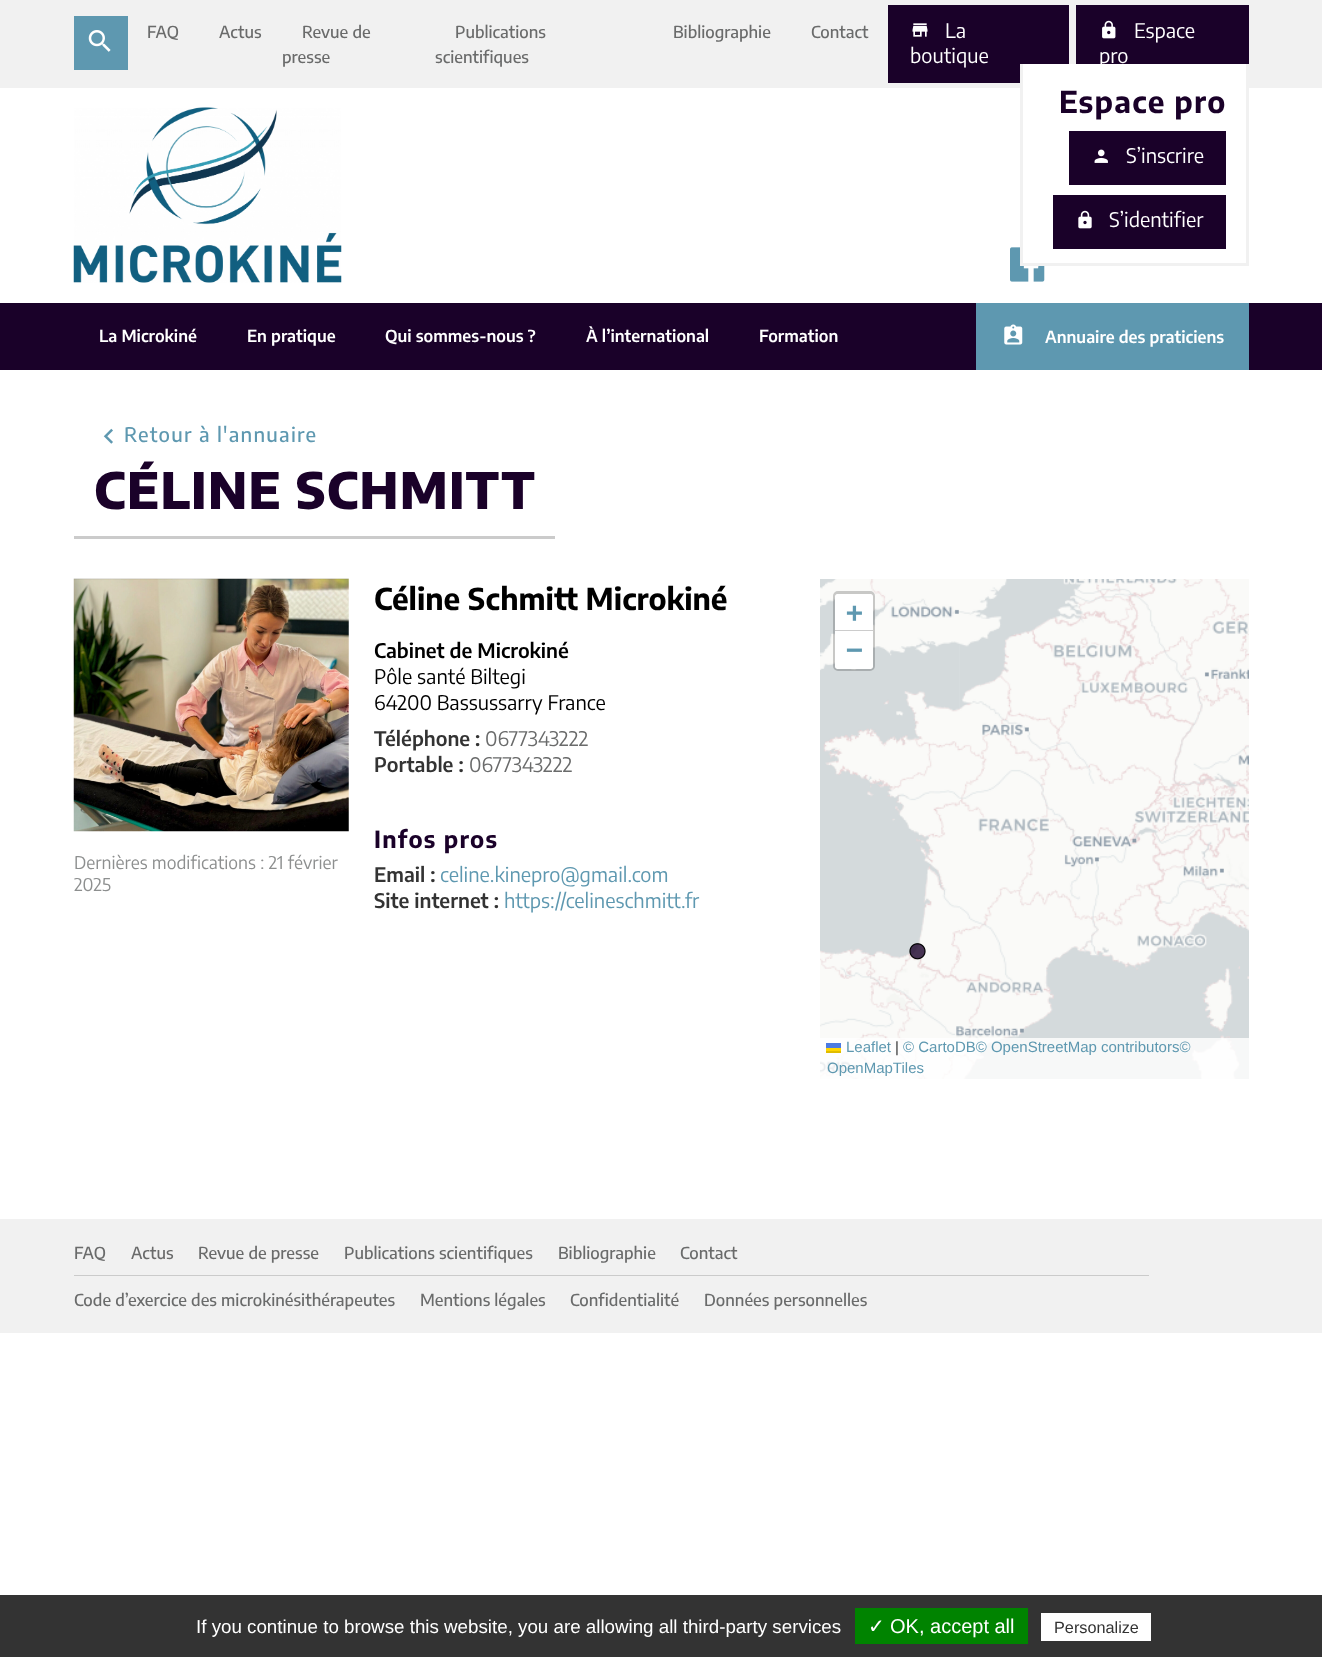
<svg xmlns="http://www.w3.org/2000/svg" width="1322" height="1657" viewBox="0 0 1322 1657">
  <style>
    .t1 { font: 500 16.5px Encode Sans Condensed; fill: #6a6b6b; }
    .t2 { font: 20px Encode Sans Condensed; fill: #fff; }
    .t3 { font: bold 30px Encode Sans Condensed; letter-spacing: 1.25px; fill: #1a0129; }
    .t4 { font: 600 16.5px Encode Sans Condensed; fill: #fff; }
    .t5 { font: 500 20px Encode Sans Condensed; letter-spacing: 1.25px; fill: #5e98b0; }
    .t6 { font: 800 50px Encode Sans Condensed; letter-spacing: 1.25px; fill: #1a0129; }
    .t7 { font: 17.5px Encode Sans Condensed; fill: #8d8f8f; }
    .t8 { font: bold 30px Encode Sans Condensed; fill: #000; }
    .t9 { font: 600 20px Encode Sans Condensed; fill: #000; }
    .t10 { font: 20px Encode Sans Condensed; fill: #000; }
    .t11 { font: 600 20px Encode Sans Condensed; fill: #333; }
    .t12 { font: 20px Encode Sans Condensed; fill: #6a6b6b; }
    .t13 { font: bold 23.5px Encode Sans Condensed; letter-spacing: 1.25px; fill: #1a0129; }
    .t14 { font: 20px Encode Sans Condensed; fill: #5e98b0; }
    .t15 { font: bold 28px DejaVu Sans Mono; fill: #5e98b0; }
    .t16 { font: 15px Liberation Sans; fill: #5e98b0; }
    .t17 { font: 15px Liberation Sans; fill: #333; }
    .t18 { font: 18.75px Liberation Sans; fill: #fff; }
    .t19 { font: 20px DejaVu Sans; fill: #fff; }
    .t20 { font: 20px Liberation Sans; fill: #fff; }
    .t21 { font: 16.25px Liberation Sans; fill: #333; }
  </style>
  <rect width="100%" height="100%" fill="#fff"/>
  <rect x="0" y="0" width="1322" height="88" fill="#f1f1f1"/>
  <rect x="74" y="16" width="54" height="54" fill="#5e98b0"/>
  <image x="88" y="30" width="23" height="22" href="images/1.png"/>
  <text x="147" y="38" class="t1">FAQ</text>
  <text x="219" y="38" class="t1">Actus</text>
  <text x="302" y="38" class="t1">Revue de</text>
  <text x="282" y="63" class="t1">presse</text>
  <text x="455" y="38" class="t1">Publications</text>
  <text x="435" y="63" class="t1">scientifiques</text>
  <text x="673" y="38" class="t1">Bibliographie</text>
  <text x="811" y="38" class="t1">Contact</text>
  <rect x="888" y="5" width="181" height="78" fill="#1a0129"/>
  <image x="912" y="23" width="16" height="14" href="images/2.png"/>
  <text x="945" y="38" class="t2">La</text>
  <text x="910" y="63" class="t2">boutique</text>
  <rect x="1076" y="5" width="173" height="59" fill="#1a0129"/>
  <image x="1102" y="20" width="14" height="19" href="images/3.png"/>
  <text x="1134" y="38" class="t2">Espace</text>
  <text x="1099" y="63" class="t2">pro</text>
  <image x="1010" y="247" width="35" height="35" href="images/7.png"/>
  <rect x="1023" y="64" width="223" height="199" fill="#fff"/>
  <rect x="1246" y="88" width="3" height="177" fill="#f1f1f1"/>
  <rect x="1020" y="263" width="229" height="3" fill="#f1f1f1"/>
  <rect x="1020" y="64" width="3" height="201" fill="#f1f1f1"/>
  <text x="1059" y="113" class="t3">Espace pro</text>
  <rect x="1069" y="131" width="157" height="54" fill="#1a0129"/>
  <image x="1094" y="149" width="14" height="14" href="images/4.png"/>
  <text x="1126" y="163" class="t2">S’inscrire</text>
  <rect x="1053" y="195" width="173" height="54" fill="#1a0129"/>
  <image x="1078" y="210" width="14" height="19" href="images/5.png"/>
  <text x="1109" y="227" class="t2">S’identifier</text>
  <image x="73" y="107" width="269" height="176" href="images/6.png"/>
  <rect x="0" y="303" width="1322" height="67" fill="#1a0129"/>
  <text x="99" y="342" class="t4">La Microkiné</text>
  <text x="247" y="342" class="t4">En pratique</text>
  <text x="385" y="342" class="t4">Qui sommes-nous ?</text>
  <text x="586" y="342" class="t4">À l’international</text>
  <text x="759" y="342" class="t4">Formation</text>
  <rect x="976" y="303" width="273" height="67" fill="#5e98b0"/>
  <image x="1004" y="324" width="19" height="21" href="images/8.png"/>
  <text x="1045" y="343" class="t4">Annuaire des praticiens</text>
  <rect x="74" y="536" width="481" height="3" fill="#cbcbcb"/>
  <image x="103" y="428" width="10" height="16" href="images/9.png"/>
  <text x="124" y="442" class="t5">Retour à l'annuaire</text>
  <text x="94" y="509" class="t6">CÉLINE SCHMITT</text>
  <image x="73" y="578" width="276" height="254" href="images/10.png"/>
  <text x="74" y="869" class="t7">Dernières modifications : 21 février</text>
  <text x="74" y="891" class="t7">2025</text>
  <text x="374" y="610" class="t8">Céline Schmitt Microkiné</text>
  <text x="374" y="658" class="t9">Cabinet de Microkiné</text>
  <text x="374" y="684" class="t10">Pôle santé Biltegi</text>
  <text x="374" y="710" class="t10">64200 Bassussarry France</text>
  <text x="374" y="746" class="t11">Téléphone :</text>
  <text x="485" y="746" class="t12">0677343222</text>
  <text x="374" y="772" class="t11">Portable :</text>
  <text x="469" y="772" class="t12">0677343222</text>
  <text x="374" y="848" class="t13">Infos pros</text>
  <text x="374" y="882" class="t11">Email :</text>
  <text x="440" y="882" class="t14">celine.kinepro@gmail.com</text>
  <text x="374" y="908" class="t11">Site internet :</text>
  <text x="504" y="908" class="t14">https://celineschmitt.fr</text>
  <image x="820" y="726" width="140" height="321" href="images/13.png"/>
  <image x="960" y="726" width="289" height="320" href="images/14.png"/>
  <image x="820" y="579" width="141" height="148" href="images/11.png"/>
  <image x="960" y="579" width="289" height="148" href="images/12.png"/>
  <image x="820" y="1046" width="140" height="33" href="images/15.png"/>
  <image x="960" y="1046" width="289" height="33" href="images/16.png"/>
  <image x="909" y="943" width="17" height="17" href="images/17.png"/>
  <rect x="834.5" y="592.5" width="39" height="77" rx="3.5" fill="none" stroke="#00000033" stroke-width="3"/>
  <path d="M837.5 594H870.5C872 594 873 595 873 596.5V631H835V596.5C835 595 836 594 837.5 594Z" fill="#fff"/>
  <rect x="835" y="630" width="38" height="1" fill="#ccc"/>
  <text x="846" y="622" class="t15">+</text>
  <path d="M835 631H873V666.5C873 668 872 669 870.5 669H837.5C836 669 835 668 835 666.5Z" fill="#fff"/>
  <text x="846" y="659" class="t15">−</text>
  <rect x="820" y="1038" width="429" height="41" fill="#ffffffcc"/>
  <text x="846" y="1052" class="t16">Leaflet</text>
  <rect x="826" y="1043" width="15" height="5" fill="#4c7be1"/>
  <rect x="826" y="1048" width="15" height="3" fill="#ffd500"/>
  <rect x="826" y="1051" width="15" height="2" fill="#e0bc00"/>
  <text x="895" y="1052" class="t17">|</text>
  <text x="903" y="1052" class="t16">© CartoDB© OpenStreetMap contributors©</text>
  <text x="827" y="1073" class="t16">OpenMapTiles</text>
  <rect x="0" y="1219" width="1322" height="114" fill="#f1f1f1"/>
  <rect x="74" y="1275" width="1075" height="1" fill="#cbcbcb"/>
  <text x="74" y="1259" class="t1">FAQ</text>
  <text x="131" y="1259" class="t1">Actus</text>
  <text x="198" y="1259" class="t1">Revue de presse</text>
  <text x="344" y="1259" class="t1">Publications scientifiques</text>
  <text x="558" y="1259" class="t1">Bibliographie</text>
  <text x="680" y="1259" class="t1">Contact</text>
  <text x="74" y="1306" class="t1">Code d’exercice des microkinésithérapeutes</text>
  <text x="420" y="1306" class="t1">Mentions légales</text>
  <text x="570" y="1306" class="t1">Confidentialité</text>
  <text x="704" y="1306" class="t1">Données personnelles</text>
  <rect x="0" y="1595" width="1322" height="62" fill="#333"/>
  <text x="196" y="1633" class="t18">If you continue to browse this website, you are allowing all third-party services</text>
  <rect x="855" y="1608" width="173" height="36" fill="#008300"/>
  <text x="868" y="1633" class="t19">✓</text>
  <text x="890" y="1633" class="t20">OK, accept all</text>
  <rect x="1041" y="1613" width="110" height="28" fill="#fff"/>
  <text x="1054" y="1633" class="t21">Personalize</text>
</svg>
